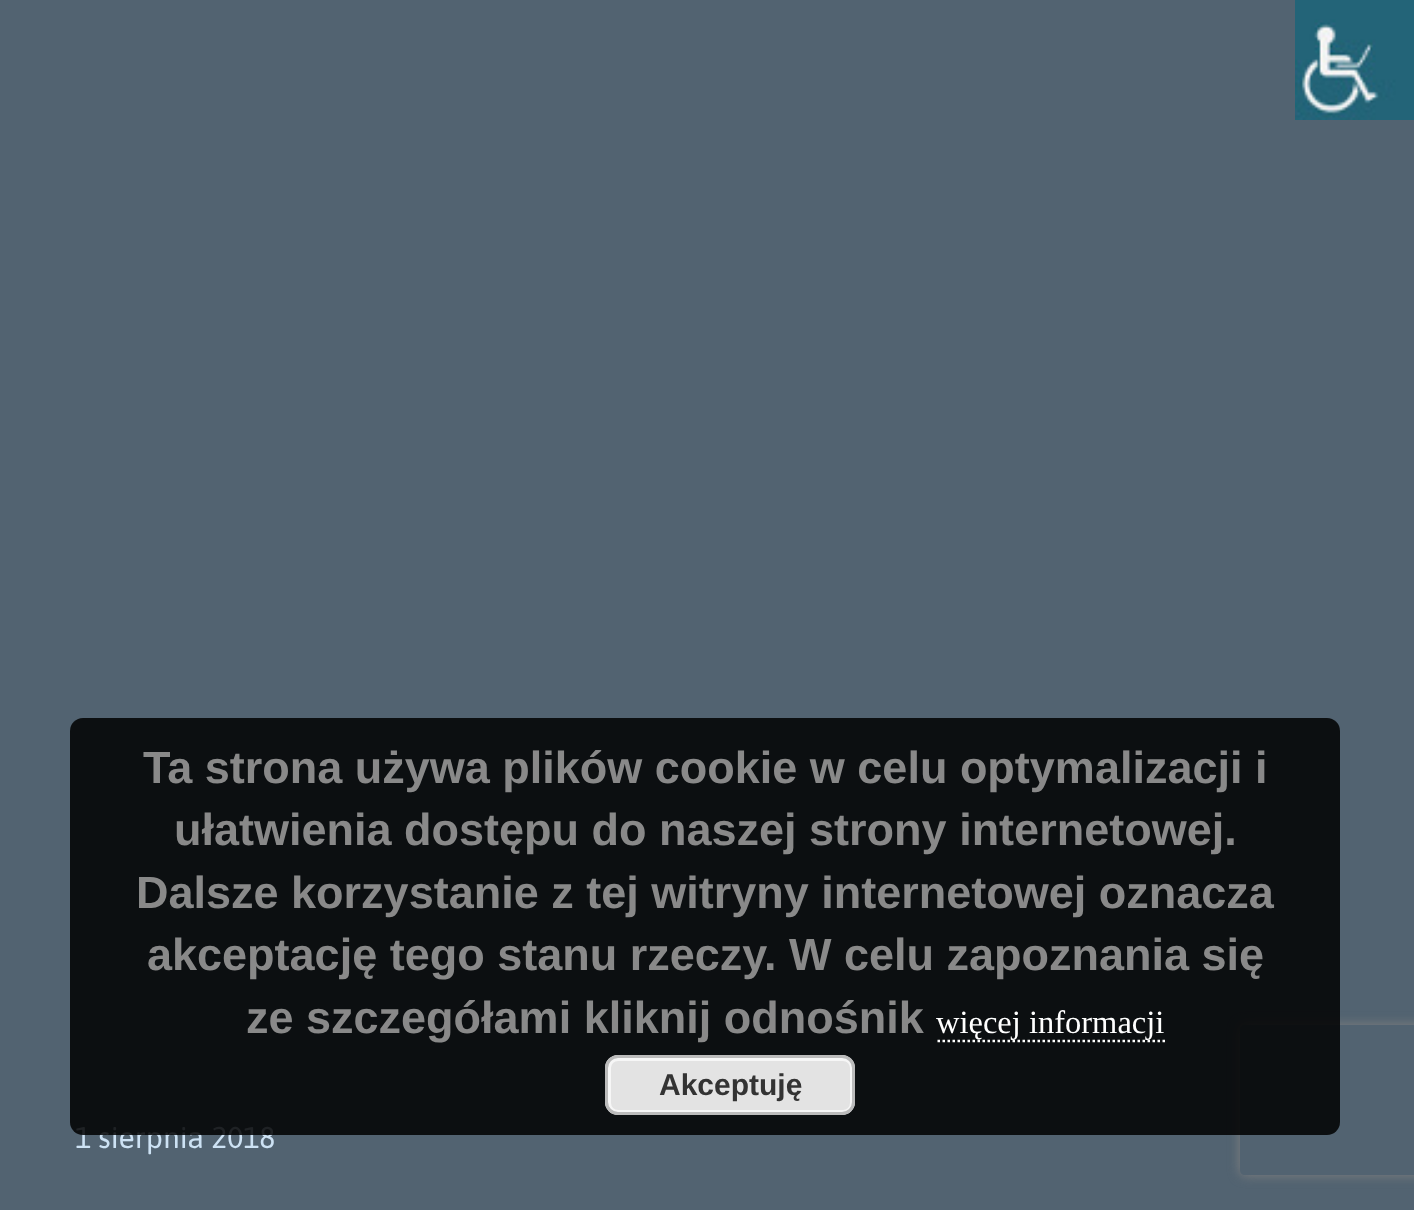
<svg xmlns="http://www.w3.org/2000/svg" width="1414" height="1210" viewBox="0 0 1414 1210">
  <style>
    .t1 { font: 30px Asap; fill: #cde2f4; }
    .t2 { font: bold 45px Liberation Sans; fill: #898989; }
    .t3 { font: 32.5px Liberation Serif; fill: #fff; }
    .t4 { font: bold 30px Liberation Sans; fill: #333; }
  </style>
  <defs>
    <clipPath id="clip1"><path d="M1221 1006H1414V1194H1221ZM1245 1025H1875C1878 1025 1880 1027 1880 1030V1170C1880 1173 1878 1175 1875 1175H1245C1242 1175 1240 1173 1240 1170V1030C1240 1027 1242 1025 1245 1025Z" clip-rule="evenodd"/></clipPath>
  </defs>
  <rect width="100%" height="100%" fill="#526371"/>
  <image x="1295" y="0" width="119" height="120" href="images/1.png"/>
  <g clip-path="url(#clip1)">
    <rect x="1240" y="1025" width="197" height="150" rx="5" fill="#808080" filter="blur(6px)"/>
  </g>
  <text x="75" y="1148" class="t1">1 sierpnia 2018</text>
  <rect x="70" y="718" width="1270" height="417" rx="13" fill="#000000d9"/>
  <text x="143" y="783" class="t2">Ta strona używa plików cookie w celu optymalizacji i</text>
  <text x="174" y="845" class="t2">ułatwienia dostępu do naszej strony internetowej.</text>
  <text x="136" y="908" class="t2">Dalsze korzystanie z tej witryny internetowej oznacza</text>
  <text x="147" y="970" class="t2">akceptację tego stanu rzeczy. W celu zapoznania się</text>
  <text x="246" y="1033" class="t2">ze szczegółami kliknij odnośnik</text>
  <path d="M937.5 1041H1165" fill="none" stroke="#fff" stroke-width="2.5" stroke-dasharray="2.5 2.5"/>
  <text x="936" y="1033" class="t3">więcej informacji</text>
  <rect x="605" y="1055" width="250" height="60" rx="13" fill="#e3e3e3"/>
  <rect x="609.5" y="1059.5" width="242" height="52" rx="8.5" fill="none" stroke="#f6f6f6" stroke-width="3"/>
  <rect x="606.5" y="1056.5" width="247" height="57" rx="11.5" fill="none" stroke="#bbb" stroke-width="3"/>
  <text x="659" y="1095" class="t4">Akceptuję</text>
</svg>
